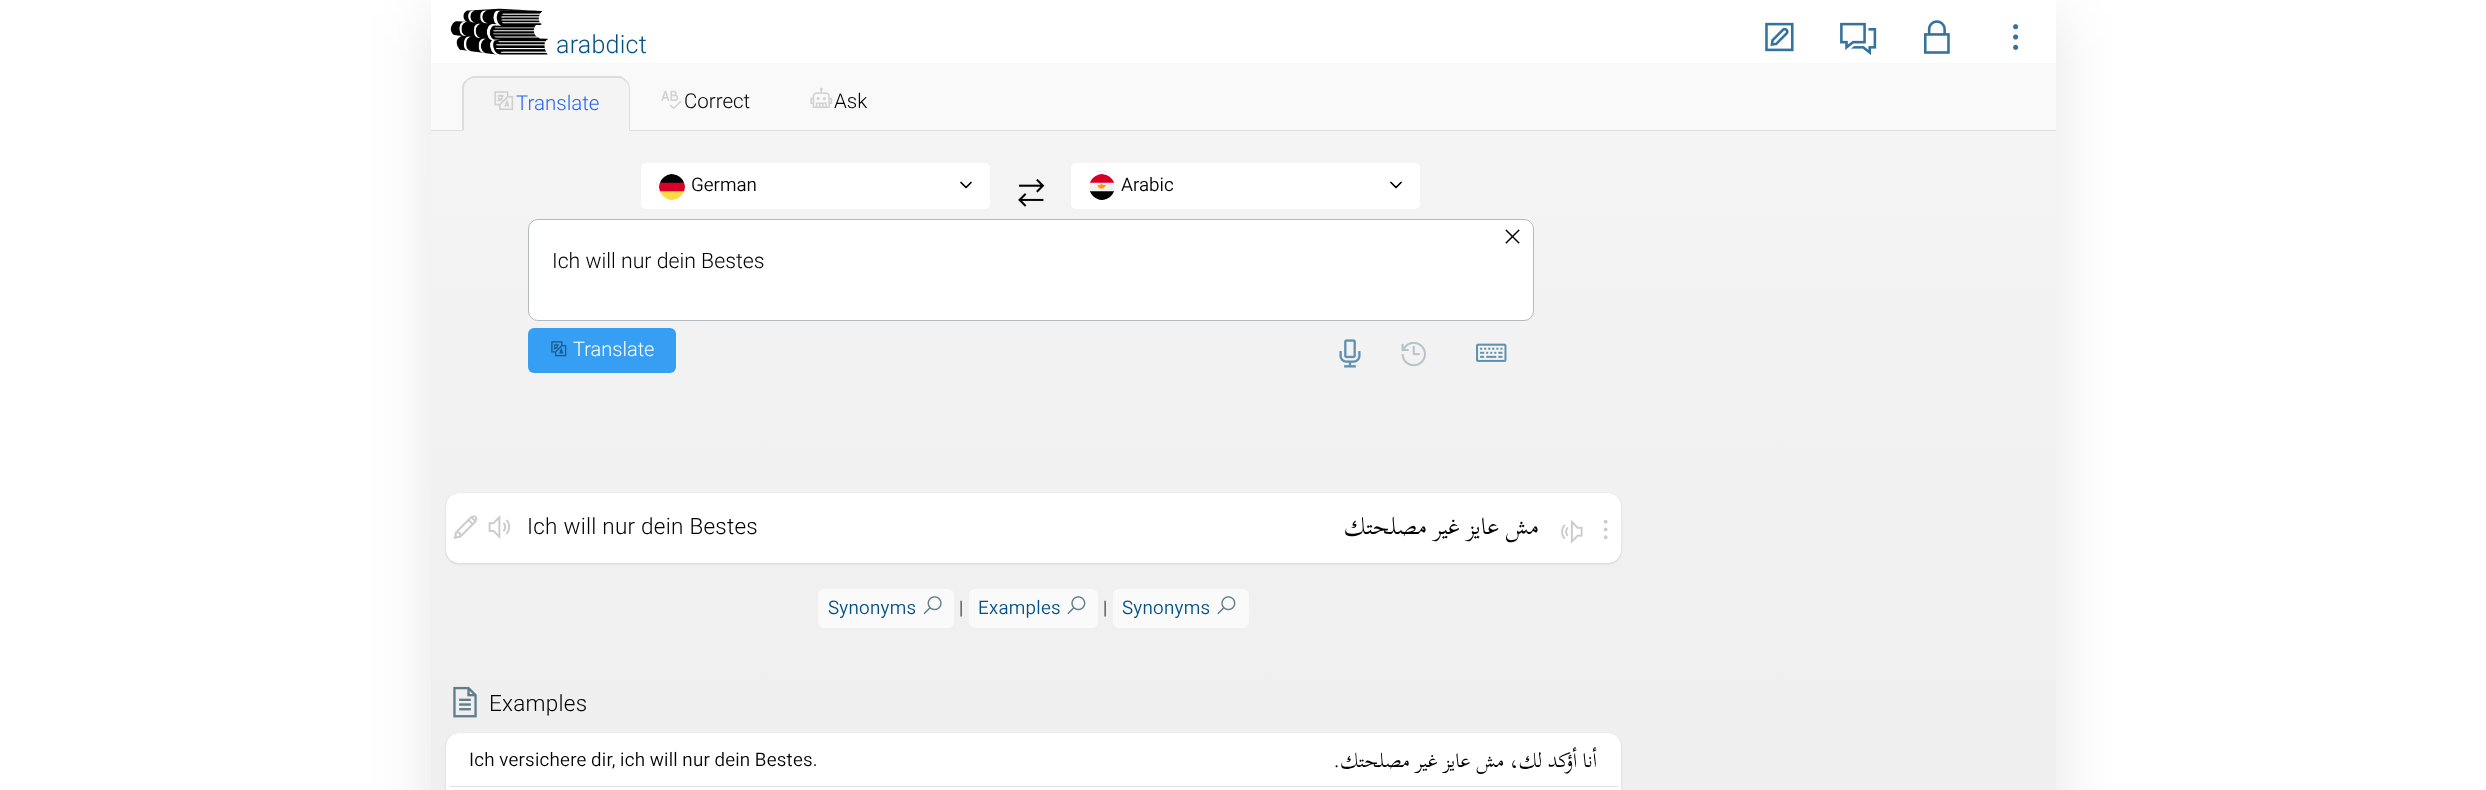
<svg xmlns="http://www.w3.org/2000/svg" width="2486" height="790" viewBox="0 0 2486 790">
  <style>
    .t1 { font: 300 25px Roboto; letter-spacing: 0.25px; fill: #005085; }
    .t2 { font: 300 20.5px Roboto; fill: #2563eb; }
    .t3 { font: 300 20.5px Roboto; fill: #000; }
    .t4 { font: 300 18.75px 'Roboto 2'; fill: #000; }
    .t5 { font: 300 21.25px Roboto; fill: #000; }
    .t6 { font: 300 20px Roboto; fill: #fefefe; }
    .t7 { font: 300 22.5px Roboto; letter-spacing: 0.25px; fill: #000; }
    .t8 { font: 23.75px Scheherazade New; direction: rtl; fill: #000; }
    .t9 { font: 300 18.75px 'Roboto 2'; letter-spacing: 0.25px; fill: #005085; }
    .t10 { font: 300 18.75px Roboto; letter-spacing: 0.25px; fill: #000; }
    .t11 { font: 300 18.75px 'Roboto 2'; letter-spacing: 0.25px; fill: #000; }
    .t12 { font: 20px Scheherazade New; direction: rtl; fill: #000; }
  </style>
  <defs>
    <linearGradient id="g1" gradientUnits="userSpaceOnUse" x1="1244" y1="131" x2="1244" y2="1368"><stop offset="0" stop-color="#f4f4f4"/><stop offset="1" stop-color="#eaeaea"/></linearGradient>
  </defs>
  <rect width="100%" height="100%" fill="#fff"/>
  <rect x="431" y="13" width="1625" height="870" fill="#0000001a" filter="blur(31px)"/>
  <rect x="431" y="0" width="1625" height="63" fill="#fff"/>
  <image x="450" y="8" width="98" height="47" href="images/1.png"/>
  <text x="556" y="53" class="t1">arabdict</text>
  <image x="1765" y="22" width="29" height="30" href="images/2.png"/>
  <image x="1840" y="22" width="37" height="33" href="images/3.png"/>
  <image x="1924" y="20" width="26" height="34" href="images/4.png"/>
  <image x="2013" y="24" width="6" height="26" href="images/5.png"/>
  <rect x="431" y="63" width="1625" height="67" fill="#f9f9f9"/>
  <rect x="431" y="130" width="1625" height="1" fill="#ddd"/>
  <path d="M476 76H617C624 76 630 82 630 89V131H463V89C463 82 469 76 476 76Z" fill="#f4f4f4"/>
  <path d="M475 78C472 78 469 79 467 81L466 80C468 78 470 77 473 76H620C622 77 625 78 626 80L625 81C623 79 621 78 618 78Z" fill="#ddd"/>
  <path d="M630 131V89C630 86 629 82 626 80L625 81C628 83 629 86 629 89V130Z" fill="#ddd"/>
  <path d="M462 86C463 83 464 81 466 80L467 81C465 83 464 86 464 89V130L462 131Z" fill="#ddd"/>
  <image x="494" y="91" width="20" height="19" href="images/6.png"/>
  <text x="516" y="110" class="t2">Translate</text>
  <image x="661" y="90" width="21" height="20" href="images/7.png"/>
  <text x="684" y="108" class="t3">Correct</text>
  <image x="810" y="87" width="23" height="21" href="images/8.png"/>
  <text x="834" y="108" class="t3">Ask</text>
  <rect x="431" y="131" width="1625" height="659" fill="url(#g1)"/>
  <rect x="641" y="163" width="349" height="46" rx="5" fill="#fff"/>
  <image x="656" y="171" width="32" height="32" href="images/9.png"/>
  <circle cx="672" cy="187" r="14.5" fill="none" stroke="#fff" stroke-width="3"/>
  <text x="691" y="191" class="t4">German</text>
  <path d="M961 182.5L966 187.5L971 182.5" fill="none" stroke="#000" stroke-width="1.7" stroke-linecap="round" stroke-linejoin="round"/>
  <image x="1018" y="179" width="27" height="28" href="images/10.png"/>
  <rect x="1071" y="163" width="349" height="46" rx="5" fill="#fff"/>
  <image x="1086" y="171" width="31" height="32" href="images/11.png"/>
  <circle cx="1102" cy="187" r="14.5" fill="none" stroke="#fff" stroke-width="3"/>
  <text x="1121" y="191" class="t4">Arabic</text>
  <path d="M1391 182.5L1396 187.5L1401 182.5" fill="none" stroke="#000" stroke-width="1.7" stroke-linecap="round" stroke-linejoin="round"/>
  <rect x="528.5" y="219.5" width="1005" height="101" rx="9.5" fill="#fff" stroke="#b2b9bf"/>
  <image x="1505" y="229" width="15" height="15" href="images/12.png"/>
  <text x="552" y="268" class="t5">Ich will nur dein Bestes</text>
  <rect x="528" y="328" width="148" height="45" rx="6" fill="#369ff3"/>
  <image x="551" y="341" width="16" height="16" href="images/13.png"/>
  <text x="573" y="356" class="t6">Translate</text>
  <image x="1339" y="339" width="22" height="29" href="images/14.png"/>
  <image x="1401" y="341" width="25" height="26" href="images/15.png"/>
  <image x="1476" y="343" width="31" height="19" href="images/16.png"/>
  <rect x="446" y="494" width="1175" height="70" rx="13" fill="#0000001f" filter="blur(1px)"/>
  <rect x="446" y="493" width="1175" height="70" rx="13" fill="#00000024" filter="blur(0.5px)"/>
  <rect x="446" y="493" width="1175" height="70" rx="13" fill="#fff"/>
  <image x="453" y="515" width="25" height="24" href="images/17.png"/>
  <image x="488" y="515" width="23" height="24" href="images/18.png"/>
  <text x="527" y="534" class="t7">Ich will nur dein Bestes</text>
  <text x="1539" y="534" class="t8">مش عايز غير مصلحتك</text>
  <image x="1561" y="520" width="22" height="24" href="images/19.png"/>
  <image x="1603" y="519" width="5" height="21" href="images/20.png"/>
  <rect x="818" y="589" width="136" height="39" rx="6" fill="#fafafa"/>
  <text x="828" y="614" class="t9">Synonyms</text>
  <image x="923" y="596" width="19" height="19" href="images/21.png"/>
  <text x="959" y="614" class="t10">|</text>
  <rect x="969" y="589" width="129" height="39" rx="6" fill="#fafafa"/>
  <text x="978" y="614" class="t9">Examples</text>
  <image x="1067" y="596" width="19" height="19" href="images/22.png"/>
  <text x="1103" y="614" class="t10">|</text>
  <rect x="1113" y="589" width="136" height="39" rx="6" fill="#fafafa"/>
  <text x="1122" y="614" class="t9">Synonyms</text>
  <image x="1217" y="596" width="19" height="19" href="images/22.png"/>
  <image x="453" y="686" width="24" height="32" href="images/23.png"/>
  <text x="489" y="711" class="t7">Examples</text>
  <rect x="446" y="734" width="1175" height="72" rx="13" fill="#0000001f" filter="blur(1px)"/>
  <rect x="446" y="733" width="1175" height="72" rx="13" fill="#00000024" filter="blur(0.5px)"/>
  <rect x="446" y="733" width="1175" height="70" rx="13" fill="#fff"/>
  <rect x="450" y="786" width="1168" height="1" fill="#dfdfdf"/>
  <text x="469" y="766" word-spacing="-0.5" class="t11">Ich versichere dir, ich will nur dein Bestes.</text>
  <text x="1597" y="767" class="t12">أنا أؤكد لك، مش عايز غير مصلحتك.</text>
</svg>
